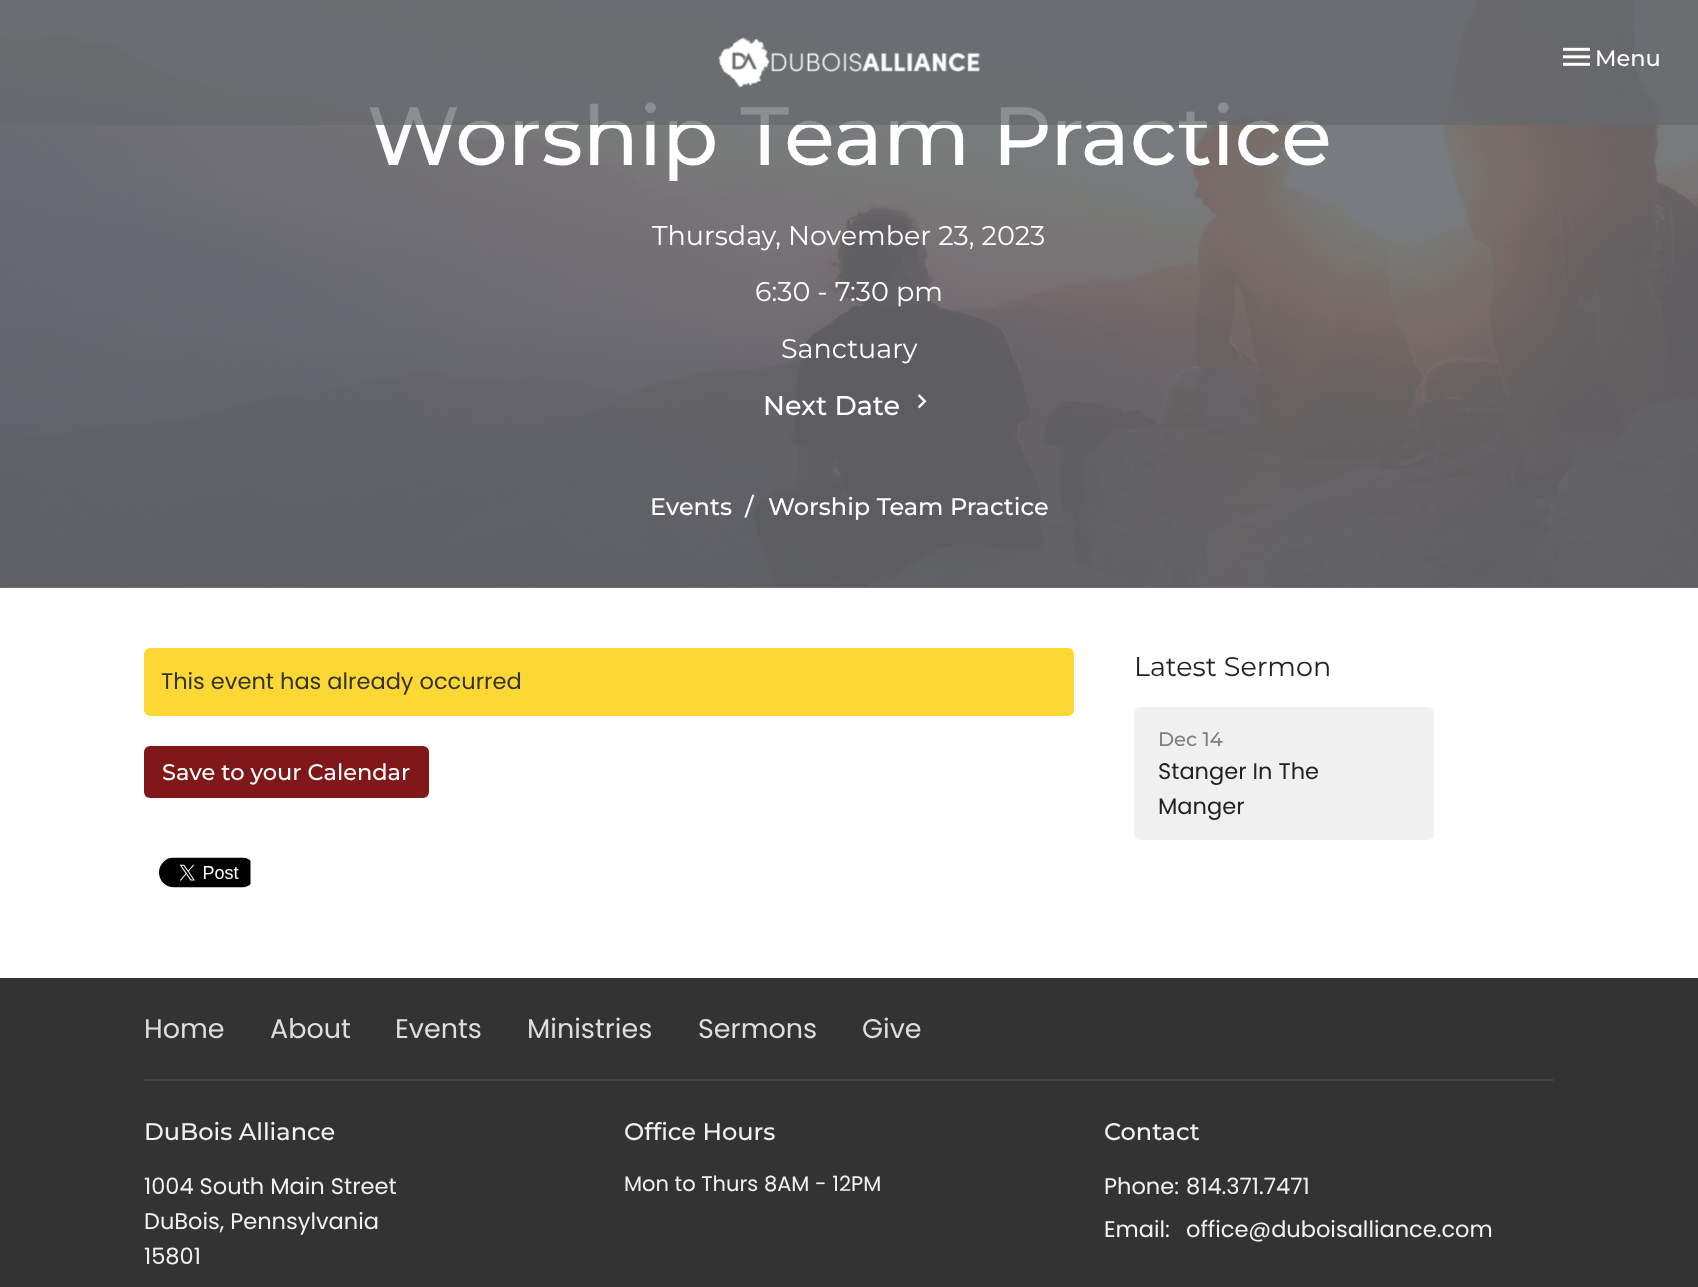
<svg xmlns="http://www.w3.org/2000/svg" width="1698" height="1287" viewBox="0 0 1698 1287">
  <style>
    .t1 { font: 500 82.5px Montserrat; fill: #fff; }
    .t2 { font: 500 22.5px Montserrat; fill: #fff; }
    .t3 { font: 27px Montserrat; fill: #fff; }
    .t4 { font: 500 27px Montserrat; fill: #fff; }
    .t5 { font: 500 24px Montserrat; fill: #fff; }
    .t6 { font: 22.5px Poppins; fill: #333; }
    .t7 { font: 27px Montserrat; fill: #222; }
    .t8 { font: 500 19.5px Montserrat; fill: #808080; }
    .t9 { font: 22.5px Poppins; fill: #222; }
    .t10 { font: 27px Poppins; fill: #dedede; }
    .t11 { font: 500 24px Montserrat; fill: #f1f1f1; }
    .t12 { font: 22.5px Poppins; fill: #f1f1f1; }
    .t13 { font: 21px Poppins; fill: #f1f1f1; }
  </style>
  <rect width="100%" height="100%" fill="#fff"/>
  <rect x="0" y="587" width="1698" height="1" fill="#787b7f"/>
  <image x="0" y="0" width="1698" height="588" href="images/3.png"/>
  <text x="367" y="165" class="t1">Worship Team Practice</text>
  <rect x="0" y="0" width="1698" height="125" fill="#66696ebf"/>
  <image x="718" y="37" width="263" height="51" href="images/1.png"/>
  <image x="1563" y="47" width="27" height="19" href="images/2.png"/>
  <text x="1595" y="66" class="t2">Menu</text>
  <text x="652" y="245" class="t3">Thursday, November 23, 2023</text>
  <text x="755" y="301" class="t3">6:30 - 7:30 pm</text>
  <text x="781" y="358" class="t3">Sanctuary</text>
  <text x="763" y="415" class="t4">Next Date</text>
  <image x="917" y="394" width="10" height="15" href="images/4.png"/>
  <text x="650" y="515" class="t5">Events</text>
  <text x="745" y="515" class="t5">/</text>
  <text x="768" y="515" class="t5">Worship Team Practice</text>
  <rect x="145" y="649" width="928" height="66" rx="5" fill="#fdd835" stroke="#fdd835" stroke-width="2"/>
  <text x="161" y="689" class="t6">This event has already occurred</text>
  <rect x="144" y="746" width="285" height="52" rx="6" fill="#80181a"/>
  <text x="162" y="780" class="t2">Save to your Calendar</text>
  <image x="159" y="857" width="92" height="31" href="images/5.png"/>
  <text x="1134" y="676" class="t7">Latest Sermon</text>
  <rect x="1134" y="707" width="300" height="133" rx="6" fill="#f0f0f0"/>
  <text x="1158" y="746" class="t8">Dec 14</text>
  <text x="1158" y="779" class="t9">Stanger In The</text>
  <text x="1158" y="814" class="t9">Manger</text>
  <rect x="0" y="978" width="1698" height="309" fill="#333"/>
  <text x="144" y="1038" class="t10">Home</text>
  <text x="270" y="1038" class="t10">About</text>
  <text x="395" y="1038" class="t10">Events</text>
  <text x="527" y="1038" class="t10">Ministries</text>
  <text x="698" y="1038" class="t10">Sermons</text>
  <text x="862" y="1038" class="t10">Give</text>
  <rect x="144" y="1079" width="1410" height="2" fill="#424242"/>
  <text x="144" y="1140" class="t11">DuBois Alliance</text>
  <text x="144" y="1194" class="t12">1004 South Main Street</text>
  <text x="144" y="1229" class="t12">DuBois, Pennsylvania</text>
  <text x="144" y="1264" class="t12">15801</text>
  <text x="624" y="1140" class="t11">Office Hours</text>
  <text x="624" y="1191" class="t13">Mon to Thurs 8AM - 12PM</text>
  <text x="1104" y="1140" class="t11">Contact</text>
  <text x="1104" y="1194" class="t12">Phone:</text>
  <text x="1186" y="1194" class="t12">814.371.7471</text>
  <text x="1104" y="1237" class="t12">Email:</text>
  <text x="1186" y="1237" class="t12">office@duboisalliance.com</text>
</svg>
